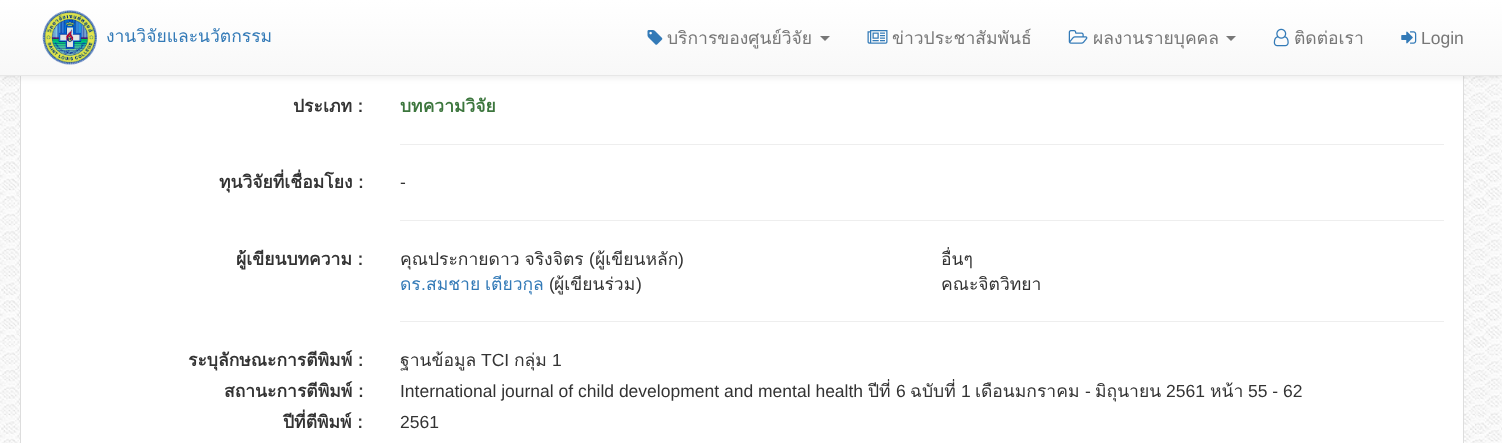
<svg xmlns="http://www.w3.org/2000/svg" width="1502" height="443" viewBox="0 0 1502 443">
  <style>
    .t1 { font: 17.5px Loma; fill: #337ab7; }
    .t2 { font: 17.5px Loma; fill: #777; }
    .t3 { font: 17.5px Liberation Sans; fill: #777; }
    .t4 { font: bold 17.5px Loma; fill: #333; }
    .t5 { font: bold 17.5px Loma; fill: #3c763d; }
    .t6 { font: 17.5px Liberation Sans; fill: #333; }
    .t7 { font: 17.5px Loma; fill: #333; }
    .t8 { font: 17.5px Liberation Sans; fill: #337ab7; }
  </style>
  <defs>
    <linearGradient id="g1" gradientUnits="userSpaceOnUse" x1="751" y1="0" x2="751" y2="75"><stop offset="0" stop-color="#fff"/><stop offset="1" stop-color="#f8f8f8"/></linearGradient>
  </defs>
  <rect width="100%" height="100%" fill="#fff"/>
  <image x="0" y="76" width="1502" height="367" href="images/1.png"/>
  <rect x="21" y="76" width="1442" height="367" fill="#fff"/>
  <rect x="20.5" y="-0.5" width="1443" height="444" fill="none" stroke="#ddd"/>
  <rect x="0" y="1" width="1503" height="77" fill="#00000012" filter="blur(3px)"/>
  <rect x="0" y="0" width="1502" height="75" fill="url(#g1)"/>
  <rect x="0" y="75" width="1502" height="1" fill="#e7e7e7"/>
  <image x="42" y="10" width="55" height="55" href="images/2.png"/>
  <text x="106" y="42" class="t1">งานวิจัยและนวัตกรรม</text>
  <image x="647" y="30" width="16" height="15" href="images/3.png"/>
  <text x="667" y="44" class="t2">บริการของศูนย์วิจัย</text>
  <path d="M820 36H830L825 41Z" fill="#777"/>
  <image x="867" y="30" width="21" height="14" href="images/4.png"/>
  <text x="892" y="44" class="t2">ข่าวประชาสัมพันธ์</text>
  <image x="1068" y="30" width="20" height="14" href="images/5.png"/>
  <text x="1093" y="44" class="t2">ผลงานรายบุคคล</text>
  <path d="M1226 36H1236L1231 41Z" fill="#777"/>
  <text x="1294" y="44" class="t2">ติดต่อเรา</text>
  <image x="1273" y="28" width="16" height="19" href="images/6.png"/>
  <image x="1401" y="31" width="16" height="13" href="images/7.png"/>
  <text x="1421" y="44" class="t3">Login</text>
  <text x="293" y="112" class="t4">ประเภท :</text>
  <text x="400" y="112" class="t5">บทความวิจัย</text>
  <rect x="400" y="144" width="1044" height="1" fill="#eee"/>
  <text x="219" y="188" class="t4">ทุนวิจัยที่เชื่อมโยง :</text>
  <text x="400" y="188" class="t6">-</text>
  <rect x="400" y="220" width="1044" height="1" fill="#eee"/>
  <text x="236" y="265" class="t4">ผู้เขียนบทความ :</text>
  <text x="400" y="265" word-spacing="-1" class="t7">คุณประกายดาว จริงจิตร</text>
  <text x="589" y="265" class="t6">(</text>
  <text x="595" y="265" class="t7">ผู้เขียนหลัก</text>
  <text x="678" y="265" class="t6">)</text>
  <text x="941" y="265" class="t7">อื่นๆ</text>
  <text x="426" y="290" word-spacing="-1" class="t1">สมชาย เตียวกุล</text>
  <text x="549" y="290" class="t6">(</text>
  <text x="554" y="290" class="t7">ผู้เขียนร่วม</text>
  <text x="400" y="290" class="t1">ดร</text>
  <text x="421" y="290" class="t8">.</text>
  <text x="636" y="290" class="t6">)</text>
  <text x="941" y="290" class="t7">คณะจิตวิทยา</text>
  <rect x="400" y="321" width="1044" height="1" fill="#eee"/>
  <text x="188" y="366" class="t4">ระบุลักษณะการตีพิมพ์ :</text>
  <text x="400" y="366" class="t7">ฐานข้อมูล</text>
  <text x="481" y="366" class="t6">TCI</text>
  <text x="514" y="366" class="t7">กลุ่ม</text>
  <text x="552" y="366" class="t6">1</text>
  <text x="224" y="397" class="t4">สถานะการตีพิมพ์ :</text>
  <text x="400" y="397" class="t6">International journal of child development and mental health</text>
  <text x="868" y="397" class="t7">ปีที่</text>
  <text x="896" y="397" class="t6">6</text>
  <text x="910" y="397" class="t7">ฉบับที่</text>
  <text x="961" y="397" class="t6">1</text>
  <text x="975" y="397" class="t7">เดือนมกราคม</text>
  <text x="1085" y="397" class="t6">-</text>
  <text x="1095" y="397" class="t7">มิถุนายน</text>
  <text x="1166" y="397" class="t6">2561</text>
  <text x="1210" y="397" class="t7">หน้า</text>
  <text x="1248" y="397" class="t6">55 - 62</text>
  <text x="283" y="428" class="t4">ปีที่ตีพิมพ์ :</text>
  <text x="400" y="428" class="t6">2561</text>
</svg>
